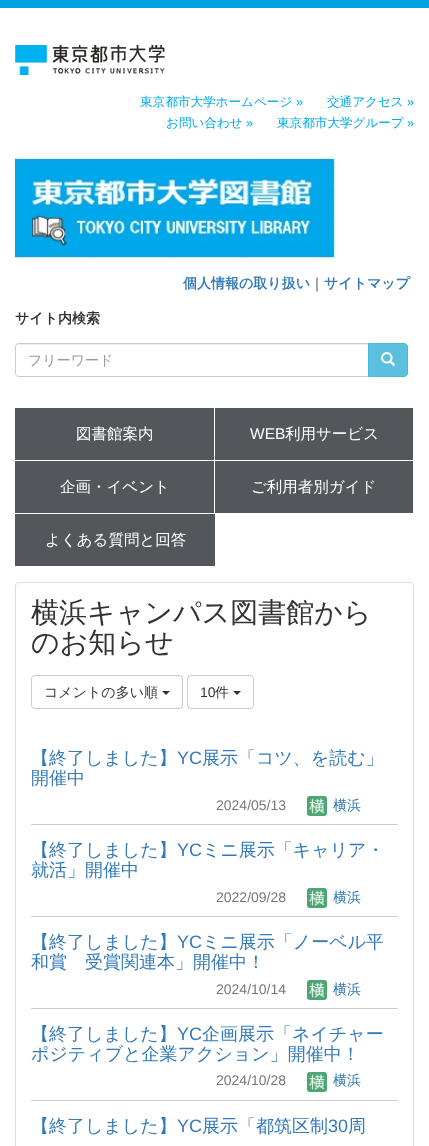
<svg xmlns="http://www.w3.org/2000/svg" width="429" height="1146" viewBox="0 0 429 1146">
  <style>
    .t1 { font: 500 12.6px WenQuanYi Zen Hei; fill: #00aae7; }
    .t2 { font: 12.6px Liberation Sans; fill: #00aae7; }
    .t3 { font: bold 14px WenQuanYi Zen Hei; fill: #337ab7; }
    .t4 { font: 500 14px WenQuanYi Zen Hei; fill: #333; }
    .t5 { font: bold 14px WenQuanYi Zen Hei; fill: #333; }
    .t6 { font: 500 14px WenQuanYi Zen Hei; fill: #999; }
    .t7 { font: 500 15.5px WenQuanYi Zen Hei; fill: #fff; }
    .t8 { font: 15.5px Liberation Sans; fill: #fff; }
    .t9 { font: 500 28px WenQuanYi Zen Hei; fill: #333; }
    .t10 { font: 14px Liberation Sans; fill: #333; }
    .t11 { font: 500 18px WenQuanYi Zen Hei; fill: #337ab7; }
    .t12 { font: 18px Liberation Sans; fill: #337ab7; }
    .t13 { font: 14px Liberation Sans; fill: #777; }
    .t14 { font: 500 14px WenQuanYi Zen Hei; fill: #337ab7; }
  </style>
  <rect width="100%" height="100%" fill="#fff"/>
  <rect x="0" y="0" width="429" height="8" fill="#00a3e0"/>
  <image x="15" y="45" width="150" height="30" href="images/1.png"/>
  <text x="140" y="106" class="t1">東京都市大学ホームページ</text>
  <text x="296" y="106" class="t2">»</text>
  <text x="327" y="106" class="t1">交通アクセス</text>
  <text x="407" y="106" class="t2">»</text>
  <text x="166" y="127" class="t1">お問い合わせ</text>
  <text x="246" y="127" class="t2">»</text>
  <text x="277" y="127" class="t1">東京都市大学グループ</text>
  <text x="407" y="127" class="t2">»</text>
  <image x="15" y="158" width="320" height="100" href="images/2.png"/>
  <text x="183" y="288" class="t3">個人情報の取り扱い</text>
  <text x="310" y="288" class="t4">｜</text>
  <text x="324" y="288" class="t3">サイトマップ</text>
  <text x="15" y="323" class="t5">サイト内検索</text>
  <path d="M19 345H368V344H19C17 344 16 345 16 347V348C16 346 17 345 19 345Z" fill="#ececec"/>
  <path d="M19 343.5H368.5V376.5H19C17 376.5 15.5 375 15.5 373V347C15.5 345 17 343.5 19 343.5Z" fill="none" stroke="#ccc"/>
  <text x="28" y="365" class="t6">フリーワード</text>
  <path d="M368.5 343.5H404C406 343.5 407.5 345 407.5 347V373C407.5 375 406 376.5 404 376.5H368.5Z" fill="#5bc0de" stroke="#46b8da"/>
  <image x="381" y="352" width="15" height="14" href="images/3.png"/>
  <rect x="15" y="408" width="199" height="52" fill="#53565a"/>
  <text x="76" y="439" class="t7">図書館案内</text>
  <rect x="215" y="408" width="198" height="52" fill="#53565a"/>
  <text x="250" y="439" class="t8">WEB</text>
  <text x="285" y="439" class="t7">利用サービス</text>
  <rect x="15" y="461" width="199" height="52" fill="#53565a"/>
  <text x="60" y="492" class="t7">企画・イベント</text>
  <rect x="215" y="461" width="198" height="52" fill="#53565a"/>
  <text x="251" y="492" class="t7">ご利用者別ガイド</text>
  <rect x="15" y="514" width="200" height="52" fill="#53565a"/>
  <text x="45" y="545" class="t7">よくある質問と回答</text>
  <rect x="15.5" y="582.5" width="398" height="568" rx="3.5" fill="none" stroke="#ddd"/>
  <text x="31" y="622" class="t9">横浜キャンパス図書館から</text>
  <text x="31" y="652" class="t9">のお知らせ</text>
  <rect x="31.5" y="675.5" width="151" height="33" rx="3.5" fill="none" stroke="#ccc"/>
  <text x="44" y="697" class="t4">コメントの多い順</text>
  <path d="M162 691H170L166 695Z" fill="#333"/>
  <rect x="187.5" y="675.5" width="66" height="33" rx="3.5" fill="none" stroke="#ccc"/>
  <text x="200" y="697" class="t10">10</text>
  <text x="215" y="697" class="t4">件</text>
  <path d="M233 691H241L237 695Z" fill="#333"/>
  <rect x="31" y="824" width="367" height="1" fill="#ccc"/>
  <text x="31" y="764" class="t11">【終了しました】</text>
  <text x="177" y="764" class="t12">YC</text>
  <text x="202" y="764" class="t11">展示「コツ、を読む」</text>
  <text x="31" y="784" class="t11">開催中</text>
  <text x="216" y="810" class="t13">2024/05/13</text>
  <image x="307" y="796" width="20" height="20" href="images/4.png"/>
  <text x="333" y="810" class="t14">横浜</text>
  <rect x="31" y="916" width="367" height="1" fill="#ccc"/>
  <text x="31" y="856" class="t11">【終了しました】</text>
  <text x="177" y="856" class="t12">YC</text>
  <text x="202" y="856" class="t11">ミニ展示「キャリア・</text>
  <text x="31" y="876" class="t11">就活」開催中</text>
  <text x="216" y="902" class="t13">2022/09/28</text>
  <image x="307" y="888" width="20" height="20" href="images/4.png"/>
  <text x="333" y="902" class="t14">横浜</text>
  <rect x="31" y="1008" width="367" height="1" fill="#ccc"/>
  <text x="31" y="948" class="t11">【終了しました】</text>
  <text x="177" y="948" class="t12">YC</text>
  <text x="202" y="948" class="t11">ミニ展示「ノーベル平</text>
  <text x="31" y="968" class="t11">和賞　受賞関連本」開催中！</text>
  <text x="216" y="994" class="t13">2024/10/14</text>
  <image x="307" y="980" width="20" height="20" href="images/5.png"/>
  <text x="333" y="994" class="t14">横浜</text>
  <rect x="31" y="1100" width="367" height="1" fill="#ccc"/>
  <text x="31" y="1040" class="t11">【終了しました】</text>
  <text x="177" y="1040" class="t12">YC</text>
  <text x="202" y="1040" class="t11">企画展示「ネイチャー</text>
  <text x="31" y="1060" class="t11">ポジティブと企業アクション」開催中！</text>
  <text x="216" y="1085" class="t13">2024/10/28</text>
  <image x="307" y="1072" width="20" height="20" href="images/4.png"/>
  <text x="333" y="1085" class="t14">横浜</text>
  <text x="31" y="1132" class="t11">【終了しました】</text>
  <text x="177" y="1132" class="t12">YC</text>
  <text x="202" y="1132" class="t11">展示「都筑区制</text>
  <text x="328" y="1132" class="t12">30</text>
  <text x="348" y="1132" class="t11">周</text>
</svg>
